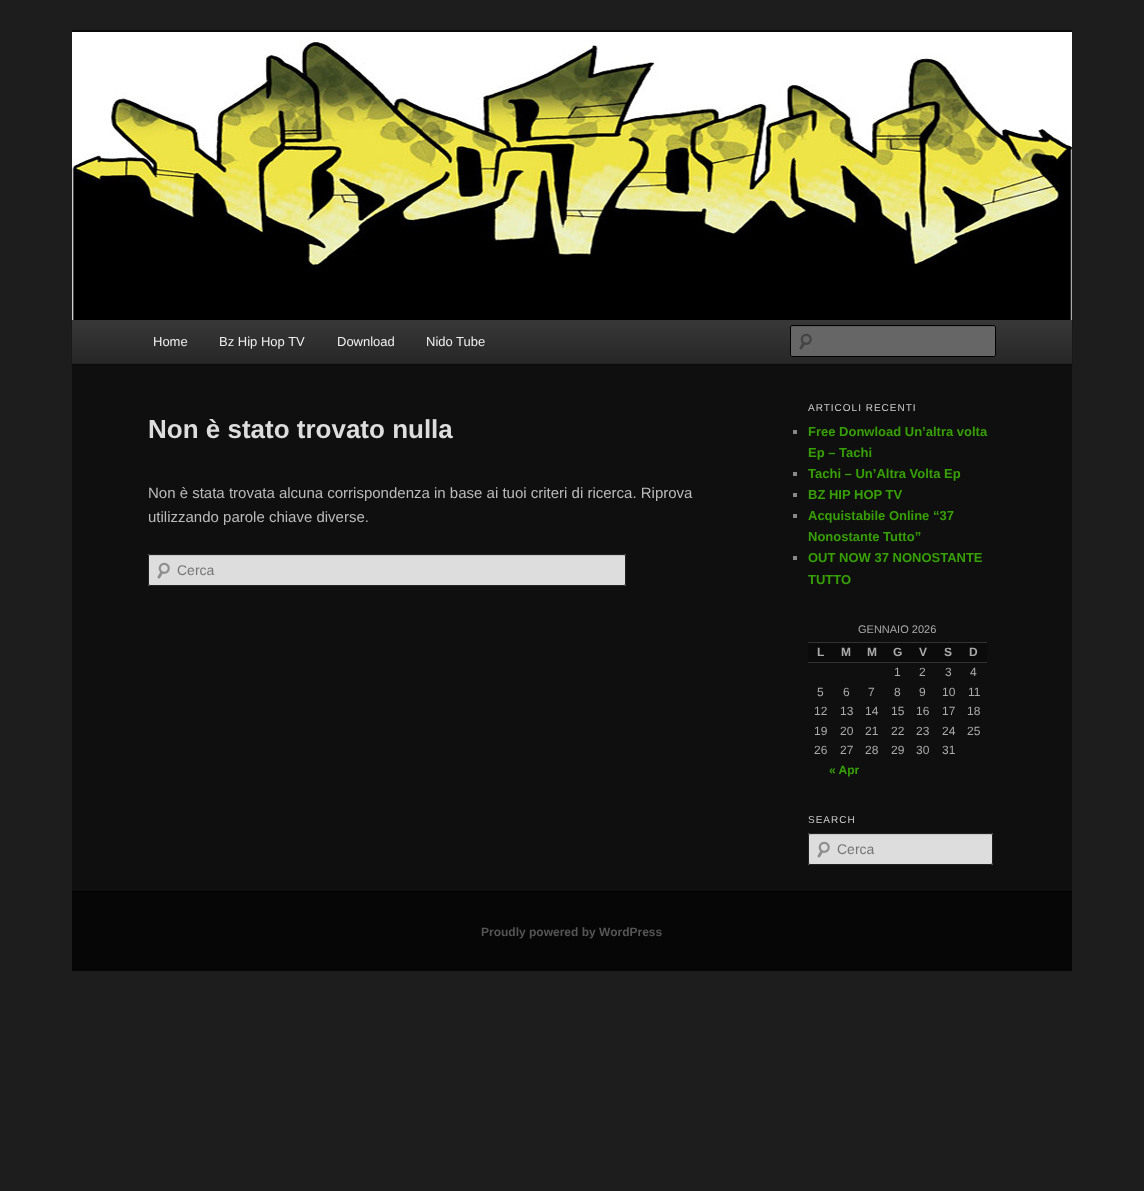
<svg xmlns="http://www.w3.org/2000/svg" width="1144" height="1191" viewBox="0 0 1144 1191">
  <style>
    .t1 { font: 13px Liberation Sans; fill: #eee; }
    .t2 { font: bold 26px Liberation Sans; fill: #ddd; }
    .t3 { font: 15px Liberation Sans; fill: #bbb; }
    .t4 { font: 14px Liberation Sans; fill: #757575; }
    .t5 { font: 10px Liberation Sans; letter-spacing: 1px; fill: #ccc; }
    .t6 { font: bold 13px Liberation Sans; fill: #37a006; }
    .t7 { font: 11px Liberation Sans; fill: #aaa; }
    .t8 { font: bold 12px Liberation Sans; fill: #aaa; }
    .t9 { font: 12px Liberation Sans; fill: #aaa; }
    .t10 { font: bold 12px Liberation Sans; fill: #37a006; }
    .t11 { font: bold 12px Liberation Sans; fill: #555; }
  </style>
  <defs>
    <linearGradient id="g1" gradientUnits="userSpaceOnUse" x1="572" y1="320" x2="572" y2="363"><stop offset="0" stop-color="#383838"/><stop offset="1" stop-color="#272727"/></linearGradient>
  </defs>
  <rect width="100%" height="100%" fill="#1d1d1d"/>
  <rect x="72" y="364" width="1000" height="527" fill="#0f0f0f"/>
  <rect x="72" y="30" width="1000" height="2" fill="#0a0a0a"/>
  <rect x="72" y="321" width="1000" height="44" fill="#00000066" filter="blur(1px)"/>
  <image x="72" y="32" width="1000" height="288" href="images/1.png"/>
  <rect x="72" y="320" width="1000" height="43" fill="url(#g1)"/>
  <rect x="72" y="363" width="1000" height="1" fill="#222"/>
  <text x="153" y="346" class="t1">Home</text>
  <text x="219" y="346" class="t1">Bz Hip Hop TV</text>
  <text x="337" y="346" class="t1">Download</text>
  <text x="426" y="346" class="t1">Nido Tube</text>
  <rect x="790" y="325" width="206" height="32" rx="2" fill="#666"/>
  <image x="799" y="333" width="13" height="17" href="images/2.png"/>
  <path d="M792 327H995V328V326H994H792C791 326 791 327 791 328C791 327 791 327 792 327Z" fill="#5c5c5c"/>
  <rect x="790.5" y="325.5" width="205" height="31" rx="1.5" fill="none" stroke="#000"/>
  <text x="148" y="438" class="t2">Non è stato trovato nulla</text>
  <text x="148" y="498" class="t3">Non è stata trovata alcuna corrispondenza in base ai tuoi criteri di ricerca. Riprova</text>
  <text x="148" y="522" class="t3">utilizzando parole chiave diverse.</text>
  <rect x="148" y="554" width="478" height="32" rx="2" fill="#ddd"/>
  <image x="157" y="562" width="13" height="17" href="images/3.png"/>
  <path d="M150 555L149 556H625L624 555Z" fill="#c7c7c7"/>
  <rect x="148.5" y="554.5" width="477" height="31" rx="1.5" fill="none" stroke="#222"/>
  <text x="177" y="575" class="t4">Cerca</text>
  <text x="808" y="411" class="t5">ARTICOLI RECENTI</text>
  <rect x="793" y="430" width="4" height="4" fill="#888"/>
  <text x="808" y="436" class="t6">Free Donwload Un’altra volta</text>
  <text x="808" y="457" class="t6">Ep – Tachi</text>
  <rect x="793" y="472" width="4" height="4" fill="#888"/>
  <text x="808" y="478" class="t6">Tachi – Un’Altra Volta Ep</text>
  <rect x="793" y="493" width="4" height="4" fill="#888"/>
  <text x="808" y="499" class="t6">BZ HIP HOP TV</text>
  <rect x="793" y="514" width="4" height="4" fill="#888"/>
  <text x="808" y="520" class="t6">Acquistabile Online “37</text>
  <text x="808" y="541" class="t6">Nonostante Tutto”</text>
  <rect x="793" y="556" width="4" height="4" fill="#888"/>
  <text x="808" y="562" class="t6">OUT NOW 37 NONOSTANTE</text>
  <text x="808" y="584" class="t6">TUTTO</text>
  <text x="858" y="633" class="t7">GENNAIO 2026</text>
  <rect x="808" y="643" width="179" height="19" fill="#0b0b0b"/>
  <rect x="808" y="642" width="179" height="1" fill="#333"/>
  <rect x="808" y="662" width="179" height="1" fill="#333"/>
  <text x="817" y="656" class="t8">L</text>
  <text x="841" y="656" class="t8">M</text>
  <text x="867" y="656" class="t8">M</text>
  <text x="893" y="656" class="t8">G</text>
  <text x="919" y="656" class="t8">V</text>
  <text x="944" y="656" class="t8">S</text>
  <text x="969" y="656" class="t8">D</text>
  <text x="894" y="676" class="t9">1</text>
  <text x="919" y="676" class="t9">2</text>
  <text x="945" y="676" class="t9">3</text>
  <text x="970" y="676" class="t9">4</text>
  <text x="817" y="696" class="t9">5</text>
  <text x="843" y="696" class="t9">6</text>
  <text x="868" y="696" class="t9">7</text>
  <text x="894" y="696" class="t9">8</text>
  <text x="919" y="696" class="t9">9</text>
  <text x="942" y="696" class="t9">10</text>
  <text x="968" y="696" class="t9">11</text>
  <text x="814" y="715" class="t9">12</text>
  <text x="840" y="715" class="t9">13</text>
  <text x="865" y="715" class="t9">14</text>
  <text x="891" y="715" class="t9">15</text>
  <text x="916" y="715" class="t9">16</text>
  <text x="942" y="715" class="t9">17</text>
  <text x="967" y="715" class="t9">18</text>
  <text x="814" y="735" class="t9">19</text>
  <text x="840" y="735" class="t9">20</text>
  <text x="865" y="735" class="t9">21</text>
  <text x="891" y="735" class="t9">22</text>
  <text x="916" y="735" class="t9">23</text>
  <text x="942" y="735" class="t9">24</text>
  <text x="967" y="735" class="t9">25</text>
  <text x="814" y="754" class="t9">26</text>
  <text x="840" y="754" class="t9">27</text>
  <text x="865" y="754" class="t9">28</text>
  <text x="891" y="754" class="t9">29</text>
  <text x="916" y="754" class="t9">30</text>
  <text x="942" y="754" class="t9">31</text>
  <text x="829" y="774" class="t10">« Apr</text>
  <text x="808" y="823" class="t5">SEARCH</text>
  <rect x="808" y="833" width="185" height="32" rx="2" fill="#ddd"/>
  <image x="817" y="841" width="13" height="17" href="images/3.png"/>
  <path d="M810 835H992V836C992 835 992 834 991 834H809V836C809 835 809 835 810 835Z" fill="#c7c7c7"/>
  <rect x="808.5" y="833.5" width="184" height="31" rx="1.5" fill="none" stroke="#222"/>
  <text x="837" y="854" class="t4">Cerca</text>
  <rect x="72" y="892" width="1000" height="79" fill="#060606"/>
  <rect x="72" y="891" width="1000" height="1" fill="#000"/>
  <text x="481" y="936" class="t11">Proudly powered by WordPress</text>
</svg>
